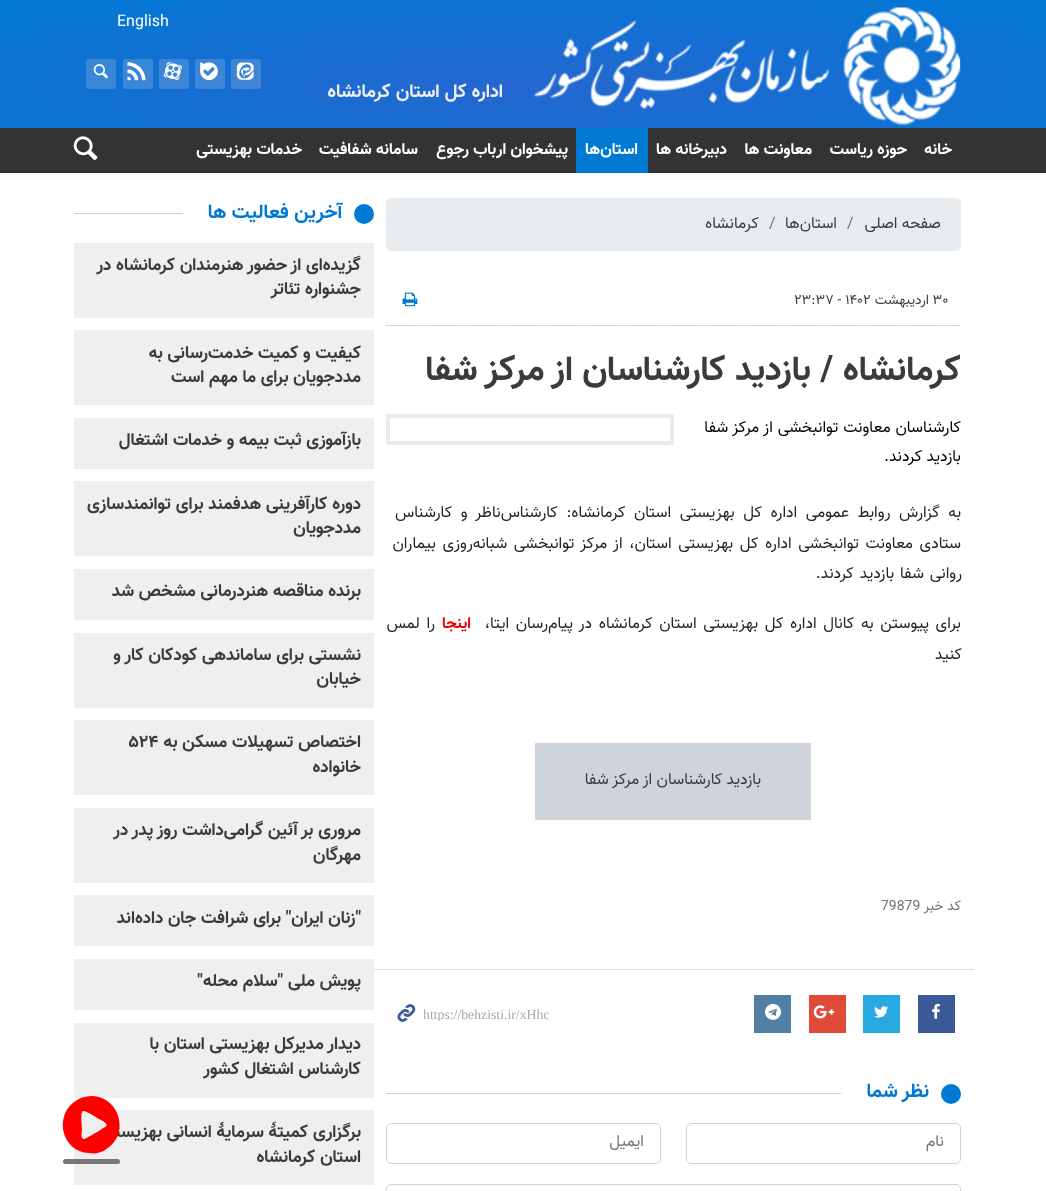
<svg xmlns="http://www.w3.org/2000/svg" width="1046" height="1191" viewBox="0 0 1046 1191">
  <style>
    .t1 { font: 16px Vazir; fill: #fff; }
    .t2 { font: bold 18.75px Vazir; direction: rtl; fill: #eee; }
    .t3 { font: bold 16.25px Vazir; direction: rtl; fill: #fff; }
    .t4 { font: 16px Vazir; direction: rtl; fill: #3b3b3b; }
    .t5 { font: 16px Vazir; fill: #6c757d; }
    .t6 { font: 14px Vazir; fill: #3b3b3b; }
    .t7 { font: 14px Vazir; direction: rtl; fill: #3b3b3b; }
    .t8 { font: bold 35px Vazir; direction: rtl; fill: #3b3b3b; }
    .t9 { font: 16px Vazir; direction: rtl; fill: #000; }
    .t10 { font: 16px Vazir; direction: rtl; fill: #212529; }
    .t11 { font: bold 16px Vazir; direction: rtl; fill: #e00; }
    .t12 { font: 16px Vazir; direction: rtl; fill: #343a40; }
    .t13 { font: 14px Vazir; direction: rtl; fill: #6c757d; }
    .t14 { font: 14px Vazir; fill: #6c757d; }
    .t15 { font: bold 17.5px Vazir; direction: rtl; fill: #3b3b3b; }
    .t16 { font: 13.75px Liberation Serif; fill: #a9a9a9; }
    .t17 { font: bold 20px Vazir; direction: rtl; fill: #0079d4; }
    .t18 { font: 16px Vazir; direction: rtl; fill: #6c757d; }
    .t19 { font: bold 17.5px Vazir; fill: #3b3b3b; }
  </style>
  <defs>
    <radialGradient id="g1" gradientUnits="userSpaceOnUse" cx="0" cy="0" r="1" gradientTransform="matrix(740 0 0 122 523 86)"><stop offset="0" stop-color="#2666d0"/><stop offset="1" stop-color="#0079d4"/></radialGradient>
    <clipPath id="clip1"><rect x="386" y="276" width="575" height="50"/></clipPath>
    <clipPath id="clip2"><rect x="424" y="1006" width="272" height="15"/></clipPath>
  </defs>
  <rect width="100%" height="100%" fill="#fff"/>
  <rect x="0" y="0" width="1046" height="128" fill="url(#g1)"/>
  <text x="117" y="26" class="t1">English</text>
  <rect x="231" y="59" width="30" height="30" rx="2.5" fill="#dee2e633"/>
  <image x="236" y="62" width="18" height="18" href="images/1.png"/>
  <rect x="195" y="59" width="30" height="30" rx="2.5" fill="#dee2e633"/>
  <image x="200" y="62" width="18" height="19" href="images/2.png"/>
  <rect x="159" y="59" width="30" height="30" rx="2.5" fill="#dee2e633"/>
  <image x="163" y="62" width="19" height="19" href="images/3.png"/>
  <rect x="123" y="59" width="30" height="30" rx="2.5" fill="#dee2e633"/>
  <image x="127" y="62" width="19" height="19" href="images/4.png"/>
  <rect x="86" y="59" width="30" height="30" rx="2.5" fill="#dee2e633"/>
  <image x="93" y="64" width="15" height="15" href="images/5.png"/>
  <image x="533" y="7" width="428" height="119" href="images/6.png"/>
  <text x="503" y="97" class="t2">اداره کل استان کرمانشاه</text>
  <rect x="0" y="128" width="1046" height="45" fill="#333"/>
  <text x="952" y="154" class="t3">خانه</text>
  <text x="907" y="154" class="t3">حوزه ریاست</text>
  <text x="812" y="154" class="t3">معاونت ها</text>
  <text x="727" y="154" class="t3">دبیرخانه ها</text>
  <rect x="576" y="128" width="72" height="45" fill="#0079d4"/>
  <text x="638" y="154" class="t3">استان‌ها</text>
  <text x="568" y="154" class="t3">پیشخوان ارباب رجوع</text>
  <text x="418" y="154" class="t3">سامانه شفافیت</text>
  <text x="302" y="154" class="t3">خدمات بهزیستی</text>
  <image x="73" y="136" width="25" height="25" href="images/7.png"/>
  <rect x="386" y="198" width="575" height="53" rx="5" fill="#e9ecef"/>
  <text x="941" y="228" class="t4">صفحه اصلی</text>
  <text x="847" y="228" class="t5">/</text>
  <text x="837" y="228" class="t4">استان‌ها</text>
  <text x="769" y="228" class="t5">/</text>
  <text x="759" y="228" class="t4">کرمانشاه</text>
  <text x="933" y="304" class="t6">۳۰</text>
  <text x="929" y="304" class="t7">اردیبهشت</text>
  <text x="794" y="304" class="t6">۲۳:۳۷ - ۱۴۰۲</text>
  <image x="402" y="292" width="16" height="15" href="images/8.png"/>
  <g clip-path="url(#clip1)">
    <path d="M386 325.5H961" fill="none" stroke="#adb5bd" stroke-width="1.2" stroke-dasharray="1.25 1.25"/>
  </g>
  <text x="961" y="380" class="t8">کرمانشاه / بازدید کارشناسان از مرکز شفا</text>
  <text x="961" y="432" word-spacing="0.5" class="t9">کارشناسان معاونت توانبخشی از مرکز شفا</text>
  <text x="961" y="461" class="t9">بازدید کردند.</text>
  <rect x="388" y="416" width="284" height="27" fill="none" stroke="#e9ecef" stroke-width="4"/>
  <text x="961" y="517" word-spacing="4.25" class="t10">به گزارش روابط عمومی اداره کل بهزیستی استان کرمانشاه: کارشناس‌ناظر و کارشناس</text>
  <text x="961" y="548" word-spacing="2.25" class="t10">ستادی معاونت توانبخشی اداره کل بهزیستی استان، از مرکز توانبخشی شبانه‌روزی بیماران</text>
  <text x="962" y="578" word-spacing="1.5" class="t10">روانی شفا بازدید کردند.</text>
  <text x="961" y="628" word-spacing="2.25" class="t10">برای پیوستن به کانال اداره کل بهزیستی استان کرمانشاه در پیام‌رسان ایتا،</text>
  <text x="471" y="628" class="t11">اینجا</text>
  <text x="435" y="628" word-spacing="2.25" class="t10">را لمس</text>
  <text x="962" y="659" class="t10">کنید</text>
  <rect x="535" y="743" width="276" height="77" fill="#ced4da"/>
  <text x="761" y="784" class="t12">بازدید کارشناسان از مرکز شفا</text>
  <text x="961" y="910" class="t13">کد خبر</text>
  <text x="881" y="910" class="t14">79879</text>
  <rect x="74" y="1023" width="300" height="75" fill="#efefef"/>
  <rect x="74" y="1110" width="300" height="75" fill="#efefef"/>
  <text x="361" y="1137" class="t15">برگزاری کمیتۀ سرمایۀ انسانی بهزیستی</text>
  <path d="M77 1100C82 1097 87 1096 93 1096C121 1098 130 1136 105 1150C100 1153 95 1154 89 1153C61 1152 53 1114 77 1100ZM105 1127C111 1124 99 1119 99 1119C96 1117 85 1110 83 1111C80 1112 82 1126 82 1129C82 1131 80 1139 84 1139C86 1139 102 1129 105 1127Z" fill="#f00"/>
  <rect x="63" y="1159" width="57" height="5" rx="2.5" fill="#777"/>
  <rect x="374" y="969" width="600" height="1" fill="#dee2e6"/>
  <rect x="918" y="995" width="37" height="38" fill="#3b5a9a"/>
  <image x="932" y="1003" width="8" height="16" href="images/9.png"/>
  <rect x="863" y="995" width="37" height="38" fill="#28a9e2"/>
  <image x="874" y="1006" width="15" height="12" href="images/10.png"/>
  <rect x="809" y="995" width="37" height="38" fill="#e04a39"/>
  <image x="813" y="1005" width="22" height="14" href="images/11.png"/>
  <rect x="754" y="995" width="37" height="38" fill="#5280a4"/>
  <image x="765" y="1003" width="16" height="17" href="images/12.png"/>
  <g clip-path="url(#clip2)">
    <text x="423" y="1019" class="t16">https://behzisti.ir/xHhc</text>
  </g>
  <image x="397" y="1004" width="19" height="18" href="images/13.png"/>
  <circle cx="951" cy="1094" r="10" fill="#0079d4"/>
  <text x="929" y="1097" class="t17">نظر شما</text>
  <rect x="386" y="1093" width="455" height="1" fill="#cdcdcd"/>
  <rect x="686.5" y="1123.5" width="274" height="40" rx="4.5" fill="none" stroke="#ced4da"/>
  <text x="944" y="1146" class="t18">نام</text>
  <rect x="386.5" y="1123.5" width="274" height="40" rx="4.5" fill="none" stroke="#ced4da"/>
  <text x="644" y="1146" class="t18">ایمیل</text>
  <rect x="386.5" y="1184.5" width="574" height="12" rx="4.5" fill="none" stroke="#ced4da"/>
  <circle cx="364" cy="214" r="10" fill="#0079d4"/>
  <text x="342" y="218" class="t17">آخرین فعالیت ها</text>
  <rect x="74" y="213" width="109" height="1" fill="#cdcdcd"/>
  <rect x="74" y="243" width="300" height="75" fill="#efefef"/>
  <text x="361" y="270" class="t15">گزیده‌ای از حضور هنرمندان کرمانشاه در</text>
  <text x="361" y="294" class="t15">جشنواره تئاتر</text>
  <rect x="74" y="330" width="300" height="75" fill="#efefef"/>
  <text x="361" y="358" class="t15">کیفیت و کمیت خدمت‌رسانی به</text>
  <text x="361" y="382" class="t15">مددجویان برای ما مهم است</text>
  <rect x="74" y="418" width="300" height="51" fill="#efefef"/>
  <text x="361" y="445" class="t15">بازآموزی ثبت بیمه و خدمات اشتغال</text>
  <rect x="74" y="481" width="300" height="75" fill="#efefef"/>
  <text x="361" y="509" class="t15">دوره کارآفرینی هدفمند برای توانمندسازی</text>
  <text x="361" y="533" class="t15">مددجویان</text>
  <rect x="74" y="569" width="300" height="51" fill="#efefef"/>
  <text x="361" y="596" class="t15">برنده مناقصه هنردرمانی مشخص شد</text>
  <rect x="74" y="633" width="300" height="75" fill="#efefef"/>
  <text x="361" y="660" class="t15">نشستی برای ساماندهی کودکان کار و</text>
  <text x="361" y="684" class="t15">خیابان</text>
  <rect x="74" y="720" width="300" height="75" fill="#efefef"/>
  <text x="361" y="747" class="t15">اختصاص تسهیلات مسکن به</text>
  <text x="129" y="747" class="t19">۵۲۴</text>
  <text x="361" y="772" class="t15">خانواده</text>
  <rect x="74" y="808" width="300" height="75" fill="#efefef"/>
  <text x="361" y="835" class="t15">مروری بر آئین گرامی‌داشت روز پدر در</text>
  <text x="361" y="860" class="t15">مهرگان</text>
  <rect x="74" y="895" width="300" height="51" fill="#efefef"/>
  <text x="361" y="923" class="t15">"زنان ایران" برای شرافت جان داده‌اند</text>
  <rect x="74" y="959" width="300" height="51" fill="#efefef"/>
  <text x="361" y="986" class="t15">پویش ملی "سلام محله"</text>
  <text x="361" y="1049" class="t15">دیدار مدیرکل بهزیستی استان با</text>
  <text x="361" y="1074" class="t15">کارشناس اشتغال کشور</text>
  <text x="361" y="1162" class="t15">استان کرمانشاه</text>
</svg>
